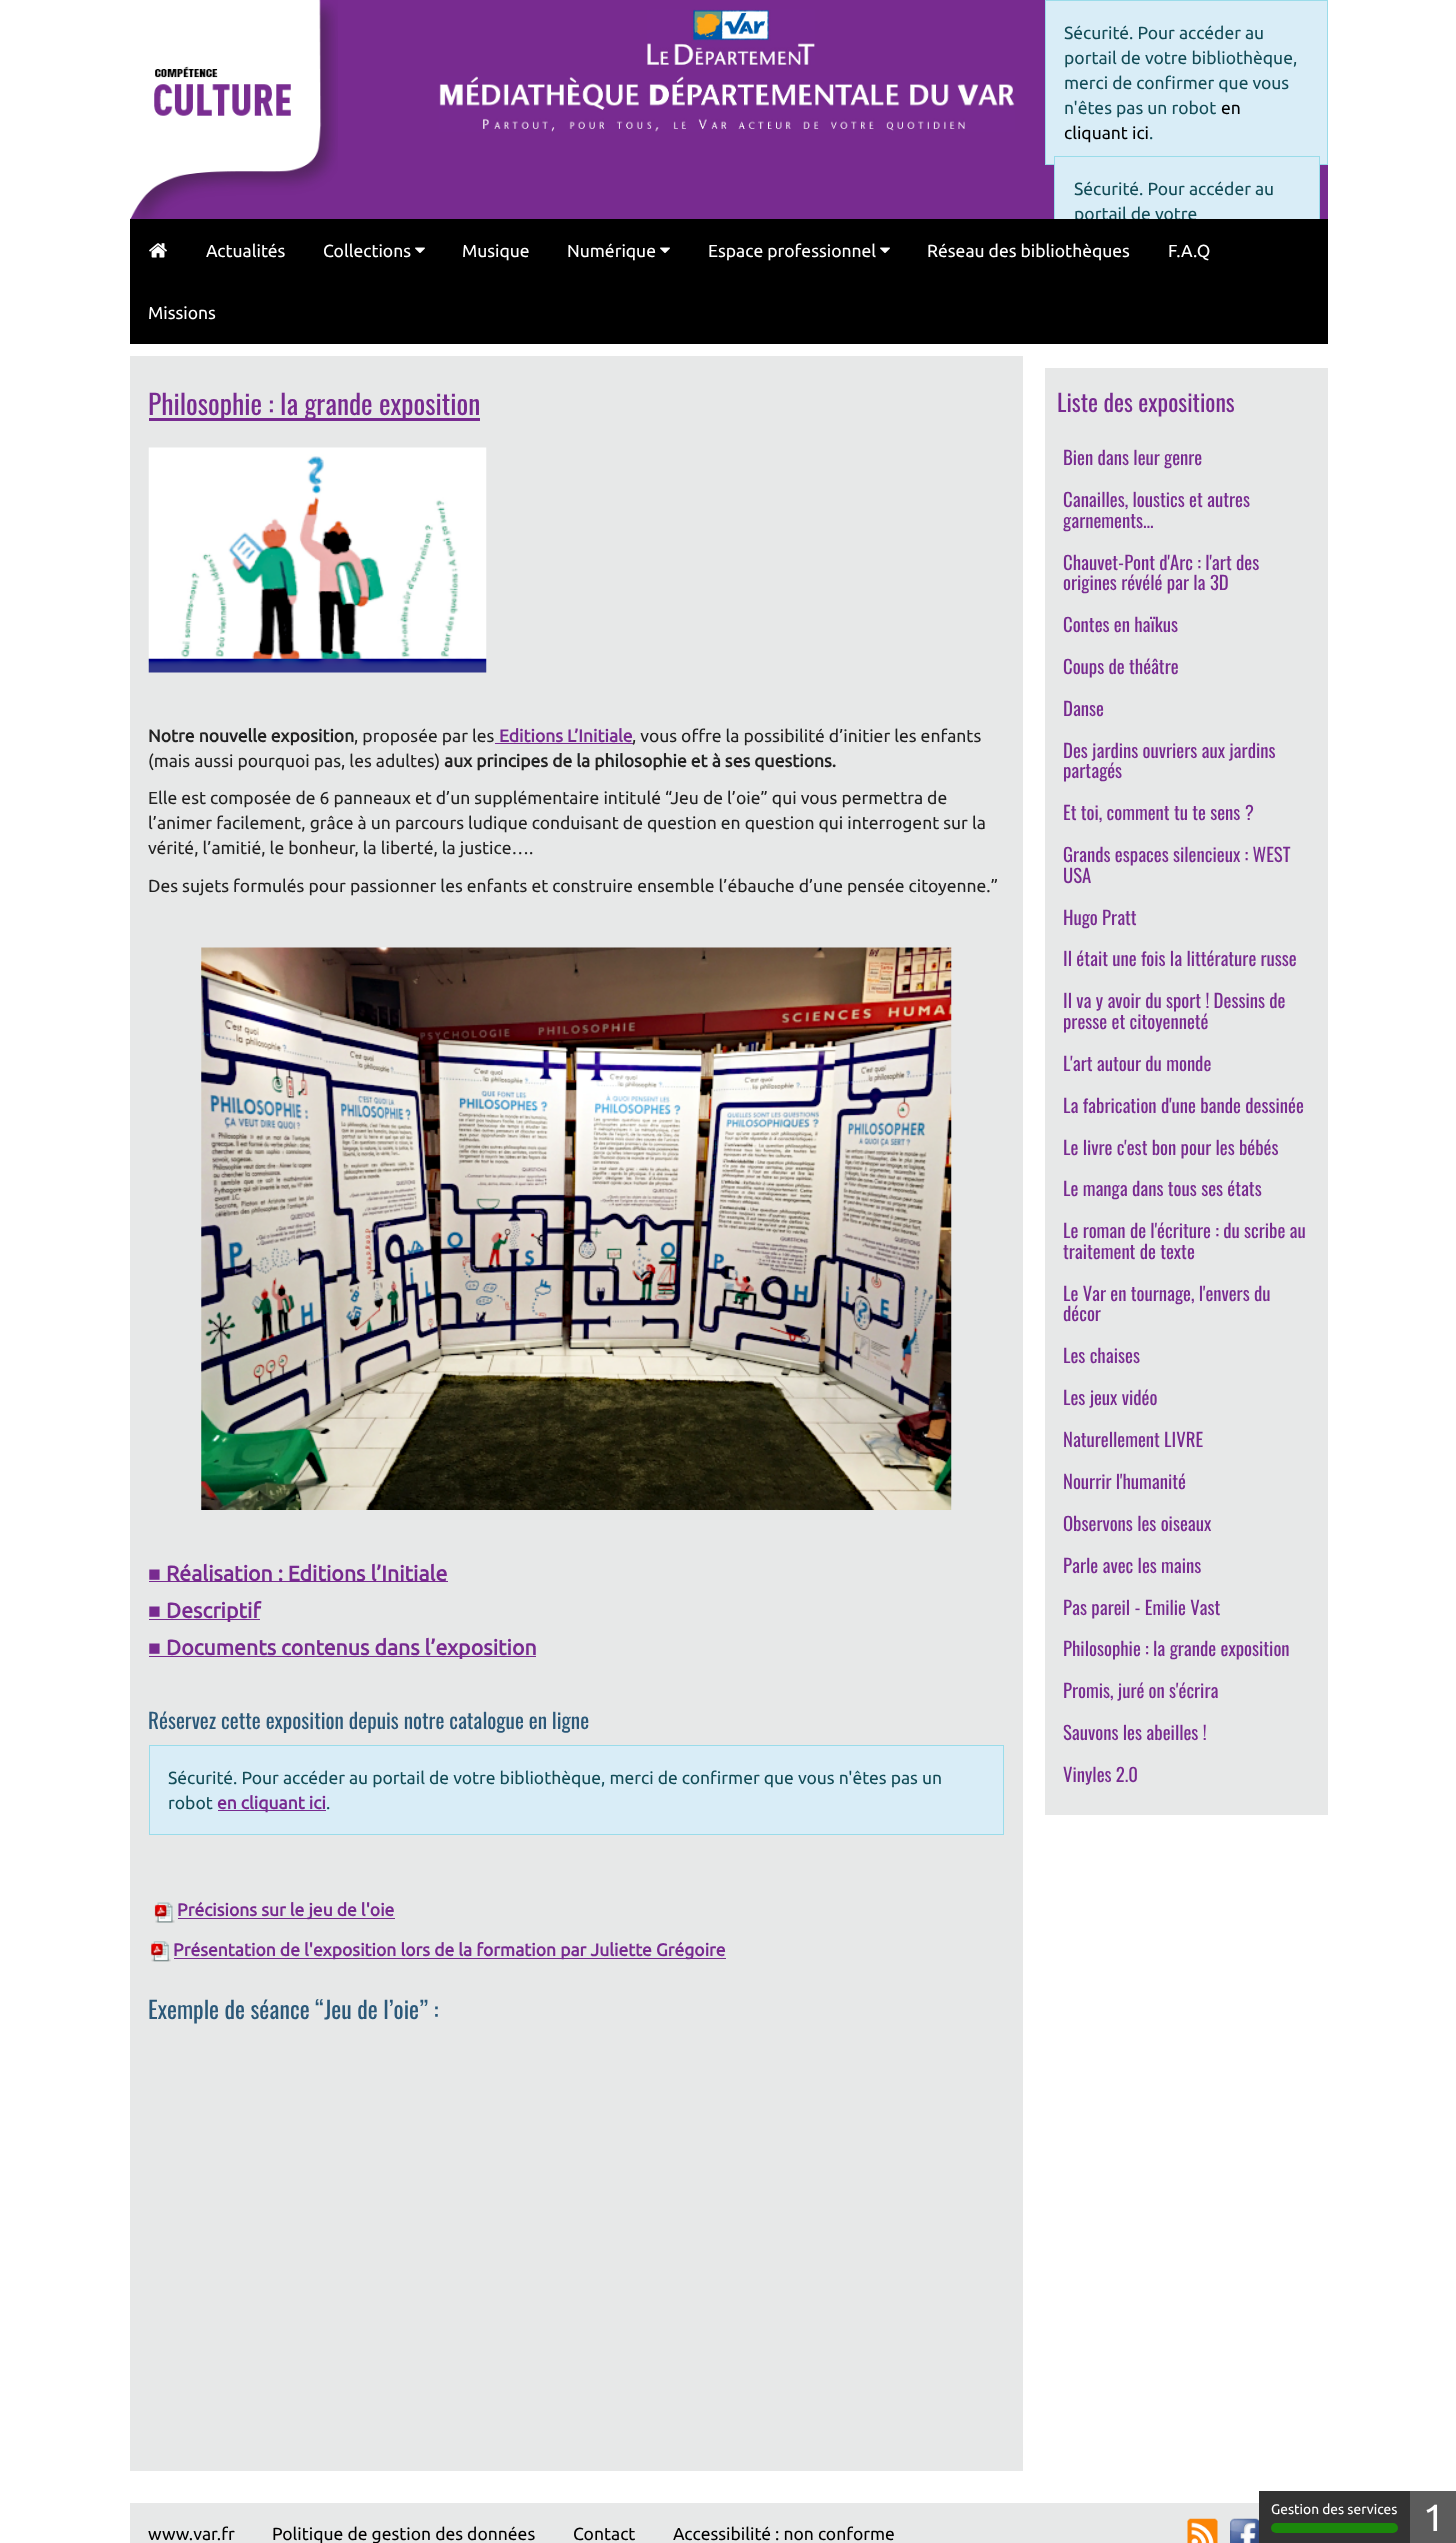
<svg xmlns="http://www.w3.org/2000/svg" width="1456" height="2543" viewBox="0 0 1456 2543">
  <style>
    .t1 { font: 17.5px Ubuntu; fill: #134d58; }
    .t2 { font: 17.5px Ubuntu; fill: #000; }
    .t3 { font: 17.5px Ubuntu; fill: #fff; }
    .t4 { font: 27.5px Oswald; fill: #782b90; }
    .t5 { font: bold 17.5px Ubuntu; fill: #222; }
    .t6 { font: 17.5px Ubuntu; fill: #222; }
    .t7 { font: bold 17.5px Ubuntu; fill: #782b90; }
    .t8 { font: bold 21.25px Liberation Serif; fill: #782b90; }
    .t9 { font: bold 21.25px Ubuntu; fill: #782b90; }
    .t10 { font: 21.25px Oswald; fill: #2c5979; }
    .t11 { font: 23.75px Oswald; fill: #2c5979; }
    .t12 { font: 23.75px Oswald; fill: #782b90; }
    .t13 { font: 18.75px Oswald; fill: #782b90; }
    .t14 { font: 13.75px Ubuntu; fill: #fff; }
    .t15 { font: 38px Ubuntu; fill: #fff; }
  </style>
  <rect width="100%" height="100%" fill="#fff"/>
  <rect x="130" y="0" width="1198" height="219" fill="#782b90"/>
  <image x="130" y="0" width="208" height="219" href="images/1.png"/>
  <image x="647" y="9" width="168" height="56" href="images/2.png"/>
  <image x="439" y="76" width="576" height="56" href="images/3.png"/>
  <rect x="1045.5" y="0.5" width="282" height="164" fill="#d9edf7" stroke="#9adcea"/>
  <text x="1064" y="39" class="t1">Sécurité. Pour accéder au</text>
  <text x="1064" y="64" class="t1">portail de votre bibliothèque,</text>
  <text x="1064" y="89" class="t1">merci de confirmer que vous</text>
  <text x="1064" y="114" class="t1">n'êtes pas un robot</text>
  <text x="1221" y="114" class="t2">en</text>
  <text x="1064" y="139" class="t2">cliquant ici</text>
  <text x="1149" y="139" class="t1">.</text>
  <rect x="1055" y="164" width="264" height="55" fill="#d9edf7"/>
  <rect x="1054.5" y="156.5" width="265" height="164" fill="none" stroke="#9adcea"/>
  <text x="1074" y="195" class="t1">Sécurité. Pour accéder au</text>
  <text x="1074" y="220" class="t1">portail de votre</text>
  <rect x="130" y="219" width="1198" height="125" fill="#000"/>
  <image x="149" y="243" width="18" height="15" href="images/4.png"/>
  <text x="206" y="257" class="t3">Actualités</text>
  <text x="323" y="257" class="t3">Collections</text>
  <image x="415" y="247" width="10" height="6" href="images/5.png"/>
  <text x="462" y="257" class="t3">Musique</text>
  <text x="567" y="257" class="t3">Numérique</text>
  <image x="660" y="247" width="10" height="6" href="images/5.png"/>
  <text x="708" y="257" class="t3">Espace professionnel</text>
  <image x="880" y="247" width="10" height="6" href="images/5.png"/>
  <text x="927" y="257" class="t3">Réseau des bibliothèques</text>
  <text x="1168" y="257" class="t3">F.A.Q</text>
  <text x="148" y="319" class="t3">Missions</text>
  <rect x="130" y="356" width="893" height="2115" fill="#e7e8e8"/>
  <rect x="149" y="418" width="331" height="3" fill="#782b90"/>
  <text x="148" y="415" class="t4">Philosophie : la grande exposition</text>
  <image x="148" y="447" width="339" height="226" href="images/6.png"/>
  <text x="148" y="742" class="t5">Notre nouvelle exposition</text>
  <text x="354" y="742" class="t6">, proposée par les</text>
  <text x="499" y="742" class="t7">Editions L’Initiale</text>
  <rect x="495" y="743" width="138" height="1" fill="#782b90"/>
  <text x="632" y="742" class="t6">, vous offre la possibilité d’initier les enfants</text>
  <text x="148" y="767" class="t6">(mais aussi pourquoi pas, les adultes)</text>
  <text x="444" y="767" class="t5">aux principes de la philosophie et à ses questions.</text>
  <text x="148" y="804" class="t6">Elle est composée de 6 panneaux et d’un supplémentaire intitulé “Jeu de l’oie” qui vous permettra de</text>
  <text x="148" y="829" class="t6">l’animer facilement, grâce à un parcours ludique conduisant de question en question qui interrogent sur la</text>
  <text x="148" y="854" class="t6">vérité, l’amitié, le bonheur, la liberté, la justice….</text>
  <text x="148" y="892" class="t6">Des sujets formulés pour passionner les enfants et construire ensemble l’ébauche d’une pensée citoyenne.”</text>
  <image x="201" y="947" width="751" height="563" href="images/7.png"/>
  <text x="148" y="1581" class="t8">■</text>
  <rect x="149" y="1581" width="299" height="1" fill="#782b90"/>
  <text x="166" y="1581" class="t9">Réalisation : Editions l’Initiale</text>
  <text x="148" y="1618" class="t8">■</text>
  <rect x="149" y="1619" width="111" height="1" fill="#782b90"/>
  <text x="166" y="1618" class="t9">Descriptif</text>
  <text x="148" y="1655" class="t8">■</text>
  <rect x="149" y="1656" width="387" height="1" fill="#782b90"/>
  <text x="166" y="1655" class="t9">Documents contenus dans l’exposition</text>
  <text x="148" y="1729" class="t10">Réservez cette exposition depuis notre catalogue en ligne</text>
  <rect x="149.5" y="1745.5" width="854" height="89" fill="#d9edf7" stroke="#9adcea"/>
  <text x="168" y="1784" class="t1">Sécurité. Pour accéder au portail de votre bibliothèque, merci de confirmer que vous n'êtes pas un</text>
  <text x="168" y="1809" class="t1">robot</text>
  <rect x="218" y="1810" width="108" height="1" fill="#782b90"/>
  <text x="217" y="1809" class="t7">en cliquant ici</text>
  <text x="326" y="1809" class="t1">.</text>
  <image x="154" y="1902" width="21" height="21" href="images/8.png"/>
  <rect x="178" y="1918" width="217" height="1" fill="#782b90"/>
  <text x="177" y="1916" class="t7">Précisions sur le jeu de l'oie</text>
  <image x="151" y="1941" width="20" height="21" href="images/9.png"/>
  <rect x="174" y="1958" width="552" height="1" fill="#782b90"/>
  <text x="173" y="1956" class="t7">Présentation de l'exposition lors de la formation par Juliette Grégoire</text>
  <text x="148" y="2019" class="t11">Exemple de séance “Jeu de l’oie” :</text>
  <rect x="1045" y="368" width="283" height="1447" fill="#e7e8e8"/>
  <text x="1057" y="412" class="t12">Liste des expositions</text>
  <text x="1063" y="465" class="t13">Bien dans leur genre</text>
  <text x="1063" y="507" class="t13">Canailles, loustics et autres</text>
  <text x="1063" y="528" class="t13">garnements...</text>
  <text x="1063" y="570" class="t13">Chauvet-Pont d'Arc : l'art des</text>
  <text x="1063" y="590" class="t13">origines révélé par la 3D</text>
  <text x="1063" y="632" class="t13">Contes en haïkus</text>
  <text x="1063" y="674" class="t13">Coups de théâtre</text>
  <text x="1063" y="716" class="t13">Danse</text>
  <text x="1063" y="758" class="t13">Des jardins ouvriers aux jardins</text>
  <text x="1063" y="778" class="t13">partagés</text>
  <text x="1063" y="820" class="t13">Et toi, comment tu te sens ?</text>
  <text x="1063" y="862" class="t13">Grands espaces silencieux : WEST</text>
  <text x="1063" y="883" class="t13">USA</text>
  <text x="1063" y="925" class="t13">Hugo Pratt</text>
  <text x="1063" y="966" class="t13">Il était une fois la littérature russe</text>
  <text x="1063" y="1008" class="t13">Il va y avoir du sport ! Dessins de</text>
  <text x="1063" y="1029" class="t13">presse et citoyenneté</text>
  <text x="1063" y="1071" class="t13">L'art autour du monde</text>
  <text x="1063" y="1113" class="t13">La fabrication d'une bande dessinée</text>
  <text x="1063" y="1155" class="t13">Le livre c'est bon pour les bébés</text>
  <text x="1063" y="1196" class="t13">Le manga dans tous ses états</text>
  <text x="1063" y="1238" class="t13">Le roman de l'écriture : du scribe au</text>
  <text x="1063" y="1259" class="t13">traitement de texte</text>
  <text x="1063" y="1301" class="t13">Le Var en tournage, l'envers du</text>
  <text x="1063" y="1321" class="t13">décor</text>
  <text x="1063" y="1363" class="t13">Les chaises</text>
  <text x="1063" y="1405" class="t13">Les jeux vidéo</text>
  <text x="1063" y="1447" class="t13">Naturellement LIVRE</text>
  <text x="1063" y="1489" class="t13">Nourrir l'humanité</text>
  <text x="1063" y="1531" class="t13">Observons les oiseaux</text>
  <text x="1063" y="1573" class="t13">Parle avec les mains</text>
  <text x="1063" y="1615" class="t13">Pas pareil - Emilie Vast</text>
  <text x="1063" y="1656" class="t13">Philosophie : la grande exposition</text>
  <text x="1063" y="1698" class="t13">Promis, juré on s'écrira</text>
  <text x="1063" y="1740" class="t13">Sauvons les abeilles !</text>
  <text x="1063" y="1782" class="t13">Vinyles 2.0</text>
  <rect x="130" y="2503" width="1129" height="40" fill="#e7e8e8"/>
  <text x="148" y="2540" class="t2">www.var.fr</text>
  <text x="272" y="2540" class="t2">Politique de gestion des données</text>
  <text x="573" y="2540" class="t2">Contact</text>
  <text x="673" y="2540" class="t2">Accessibilité : non conforme</text>
  <image x="1187" y="2518" width="31" height="25" href="images/10.png"/>
  <image x="1230" y="2518" width="29" height="25" href="images/11.png"/>
  <rect x="1259" y="2491" width="151" height="52" fill="#333"/>
  <text x="1271" y="2514" class="t14">Gestion des services</text>
  <rect x="1271" y="2523" width="127" height="10" rx="5" fill="#1b870b"/>
  <rect x="1410" y="2491" width="46" height="52" fill="#5c5c5c"/>
  <text x="1423" y="2531" class="t15">1</text>
</svg>
